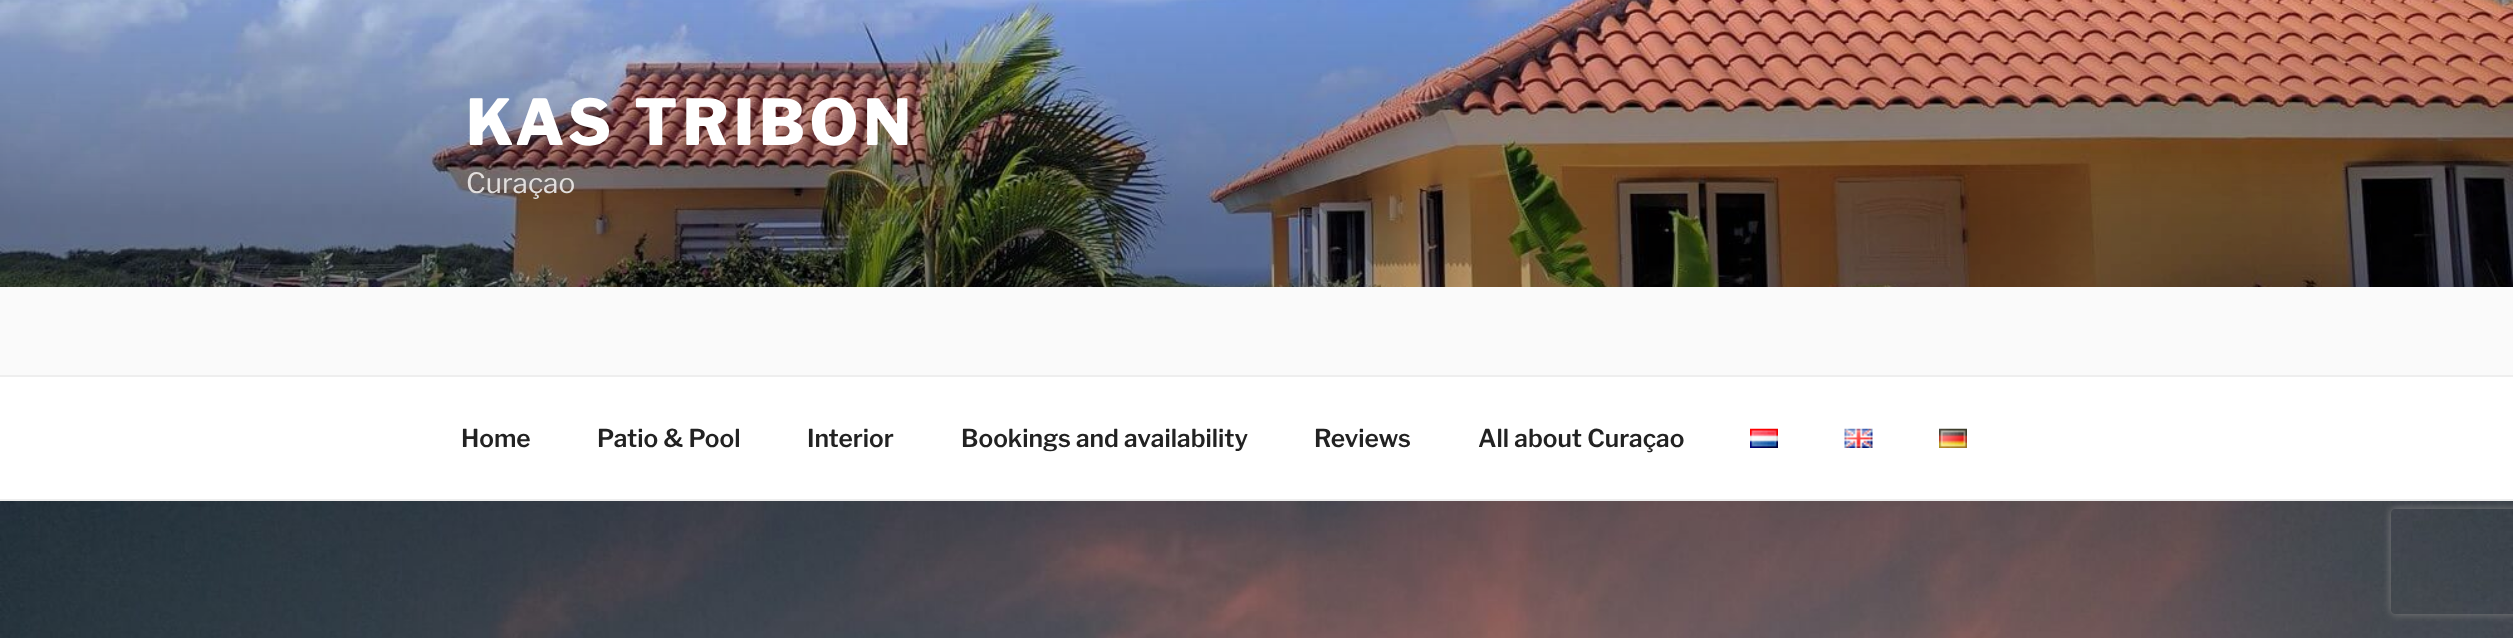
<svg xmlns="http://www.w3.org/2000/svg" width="2513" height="638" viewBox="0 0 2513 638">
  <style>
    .t1 { font: 100 63px Libre Franklin; letter-spacing: 5px; fill: #fff; }
    .t2 { font: 100 28px 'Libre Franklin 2'; fill: #e2dfde; }
    .t3 { font: 100 24.5px 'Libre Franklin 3'; fill: #222; }
  </style>
  <defs>
    <clipPath id="clip1"><path d="M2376 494H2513V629H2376ZM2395 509H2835C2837 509 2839 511 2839 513V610C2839 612 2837 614 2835 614H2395C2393 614 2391 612 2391 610V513C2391 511 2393 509 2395 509Z" clip-rule="evenodd"/></clipPath>
  </defs>
  <rect width="100%" height="100%" fill="#fff"/>
  <rect x="0" y="287" width="2513" height="88" fill="#fafafa"/>
  <image x="0" y="0" width="2513" height="287" href="images/1.png"/>
  <text x="466" y="145" class="t1">KAS TRIBON</text>
  <text x="466" y="193" class="t2">Curaçao</text>
  <rect x="0" y="375" width="2513" height="2" fill="#eee"/>
  <image x="0" y="501" width="2513" height="137" href="images/5.png"/>
  <g clip-path="url(#clip1)">
    <rect x="2391" y="509" width="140" height="105" rx="4" fill="#808080" filter="blur(4.5px)"/>
  </g>
  <rect x="0" y="499" width="2513" height="2" fill="#eee"/>
  <text x="461" y="447" class="t3">Home</text>
  <text x="597" y="447" class="t3">Patio &amp; Pool</text>
  <text x="807" y="447" class="t3">Interior</text>
  <text x="961" y="447" class="t3">Bookings and availability</text>
  <text x="1314" y="447" class="t3">Reviews</text>
  <text x="1478" y="447" class="t3">All about Curaçao</text>
  <image x="1750" y="428" width="28" height="20" href="images/2.png"/>
  <image x="1844" y="428" width="29" height="20" href="images/3.png"/>
  <image x="1939" y="428" width="28" height="20" href="images/4.png"/>
</svg>
